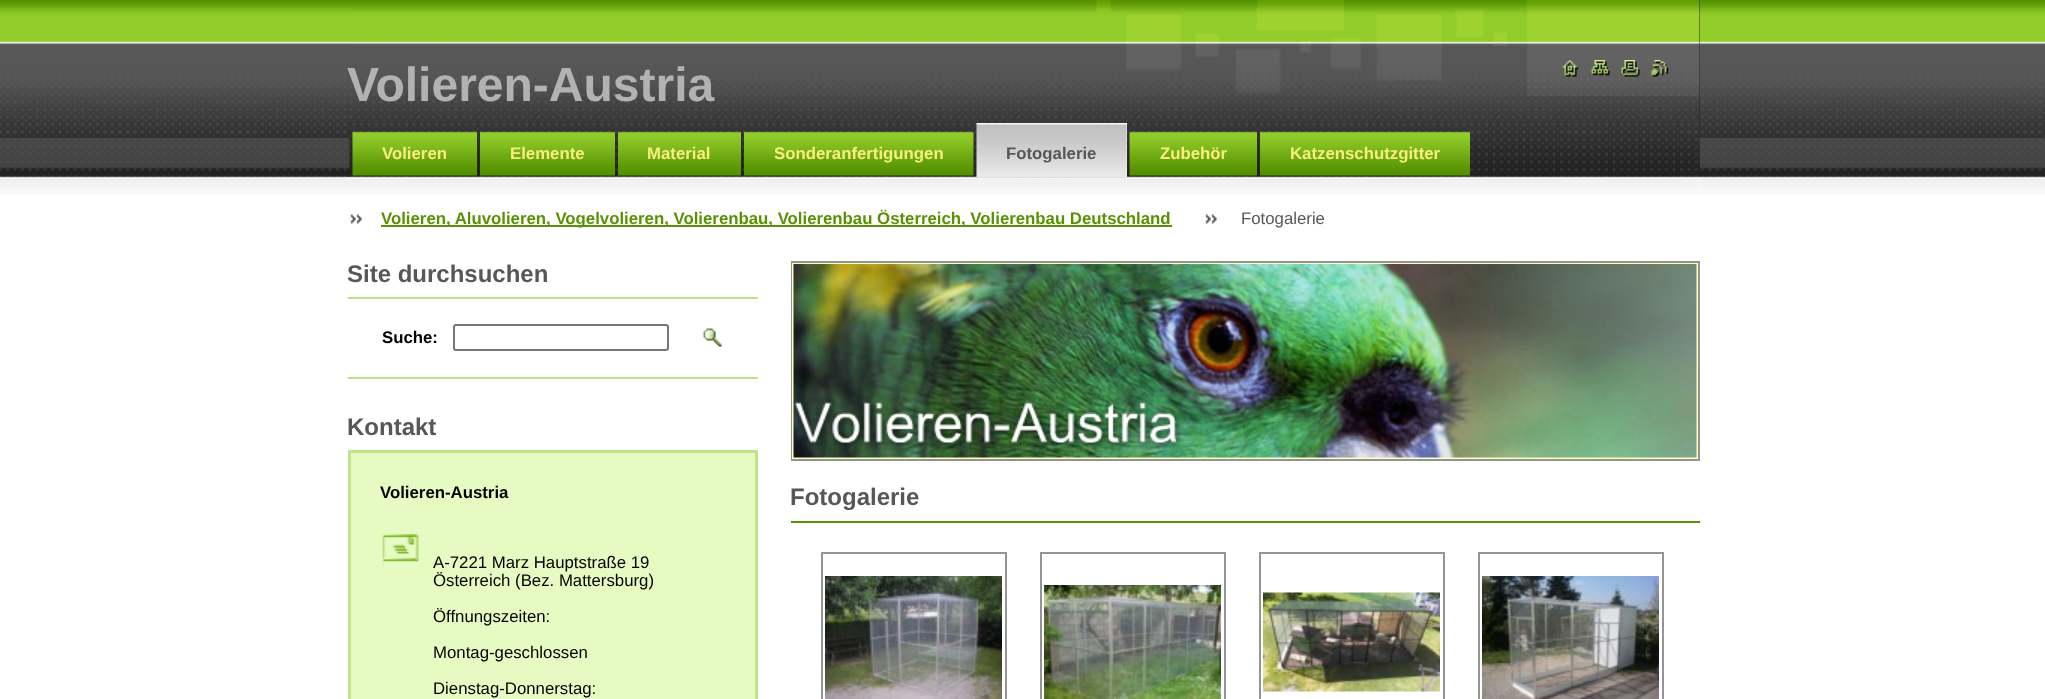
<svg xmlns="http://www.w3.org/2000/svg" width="2045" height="699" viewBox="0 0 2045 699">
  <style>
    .t1 { font: bold 48px Liberation Sans; fill: #b2b2b2; }
    .t2 { font: bold 16.8px Liberation Sans; fill: #f9ef7f; }
    .t3 { font: bold 16.8px Liberation Sans; fill: #575757; }
    .t4 { font: bold 16.8px Liberation Sans; fill: #589203; }
    .t5 { font: 16.8px Liberation Sans; fill: #575757; }
    .t6 { font: bold 24px Liberation Sans; fill: #575757; }
    .t7 { font: bold 16.8px Liberation Sans; fill: #000; }
    .t8 { font: 16.8px Liberation Sans; fill: #000; }
  </style>
  <rect width="100%" height="100%" fill="#fff"/>
  <image x="0" y="0" width="2045" height="195" href="images/1.png"/>
  <rect x="1699" y="0" width="1" height="177" fill="#262626"/>
  <image x="348" y="0" width="1352" height="177" href="images/2.png"/>
  <text x="347" y="101" class="t1">Volieren-Austria</text>
  <image x="1562" y="60" width="17" height="17" href="images/3.png"/>
  <image x="1591" y="60" width="19" height="16" href="images/4.png"/>
  <image x="1621" y="60" width="19" height="17" href="images/5.png"/>
  <image x="1651" y="60" width="18" height="17" href="images/6.png"/>
  <rect x="348" y="177" width="1352" height="18" fill="#fff"/>
  <image x="348" y="177" width="1352" height="18" href="images/15.png"/>
  <image x="349" y="123" width="1351" height="56" href="images/7.png"/>
  <image x="352" y="131" width="125" height="45" href="images/8.png"/>
  <text x="382" y="159" class="t2">Volieren</text>
  <image x="480" y="131" width="135" height="45" href="images/9.png"/>
  <text x="510" y="159" class="t2">Elemente</text>
  <image x="618" y="131" width="123" height="45" href="images/10.png"/>
  <text x="647" y="159" class="t2">Material</text>
  <image x="744" y="131" width="230" height="45" href="images/11.png"/>
  <text x="774" y="159" class="t2">Sonderanfertigungen</text>
  <rect x="1126" y="123" width="1" height="54" fill="#ededed"/>
  <image x="976" y="123" width="151" height="54" href="images/12.png"/>
  <text x="1006" y="159" class="t3">Fotogalerie</text>
  <image x="1129" y="131" width="128" height="45" href="images/13.png"/>
  <text x="1160" y="159" class="t2">Zubehör</text>
  <image x="1260" y="131" width="210" height="45" href="images/14.png"/>
  <text x="1290" y="159" class="t2">Katzenschutzgitter</text>
  <image x="350" y="214" width="12" height="10" href="images/16.png"/>
  <rect x="381" y="225" width="791" height="2" fill="#589203"/>
  <text x="381" y="224" class="t4">Volieren, Aluvolieren, Vogelvolieren, Volierenbau, Volierenbau Österreich, Volierenbau Deutschland</text>
  <image x="1205" y="214" width="12" height="10" href="images/16.png"/>
  <text x="1241" y="224" class="t5">Fotogalerie</text>
  <text x="347" y="282" class="t6">Site durchsuchen</text>
  <rect x="348" y="297" width="410" height="2" fill="#bce37c"/>
  <rect x="348" y="377" width="410" height="2" fill="#bce37c"/>
  <text x="382" y="343" class="t7">Suche:</text>
  <rect x="454" y="325" width="214" height="25" rx="2" fill="none" stroke="#767676" stroke-width="2"/>
  <image x="703" y="328" width="19" height="19" href="images/17.png"/>
  <text x="347" y="435" class="t6">Kontakt</text>
  <rect x="349.5" y="451.5" width="407" height="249" fill="#e6fbc2" stroke="#c1e48a" stroke-width="3"/>
  <text x="380" y="498" class="t7">Volieren-Austria</text>
  <image x="382" y="534" width="37" height="28" href="images/18.png"/>
  <text x="433" y="568" class="t8">A-7221 Marz Hauptstraße 19</text>
  <text x="433" y="586" class="t8">Österreich (Bez. Mattersburg)</text>
  <text x="433" y="622" class="t8">Öffnungszeiten:</text>
  <text x="433" y="658" class="t8">Montag-geschlossen</text>
  <text x="433" y="694" class="t8">Dienstag-Donnerstag:</text>
  <rect x="792" y="262" width="907" height="198" fill="none" stroke="#939393" stroke-width="2"/>
  <rect x="793" y="264" width="904" height="194" fill="none" stroke="#ffffbe" stroke-width="2"/>
  <image x="793" y="264" width="904" height="194" href="images/19.png"/>
  <text x="790" y="505" class="t6">Fotogalerie</text>
  <rect x="791" y="521" width="909" height="2" fill="#569102"/>
  <rect x="822" y="553" width="184" height="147" fill="none" stroke="#949496" stroke-width="2"/>
  <image x="825" y="576" width="177" height="123" href="images/20.png"/>
  <rect x="1041" y="553" width="184" height="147" fill="none" stroke="#949496" stroke-width="2"/>
  <image x="1044" y="585" width="177" height="114" href="images/21.png"/>
  <rect x="1260" y="553" width="184" height="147" fill="none" stroke="#949496" stroke-width="2"/>
  <image x="1263" y="592" width="177" height="100" href="images/22.png"/>
  <rect x="1479" y="553" width="184" height="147" fill="none" stroke="#949496" stroke-width="2"/>
  <image x="1482" y="576" width="177" height="123" href="images/23.png"/>
</svg>
